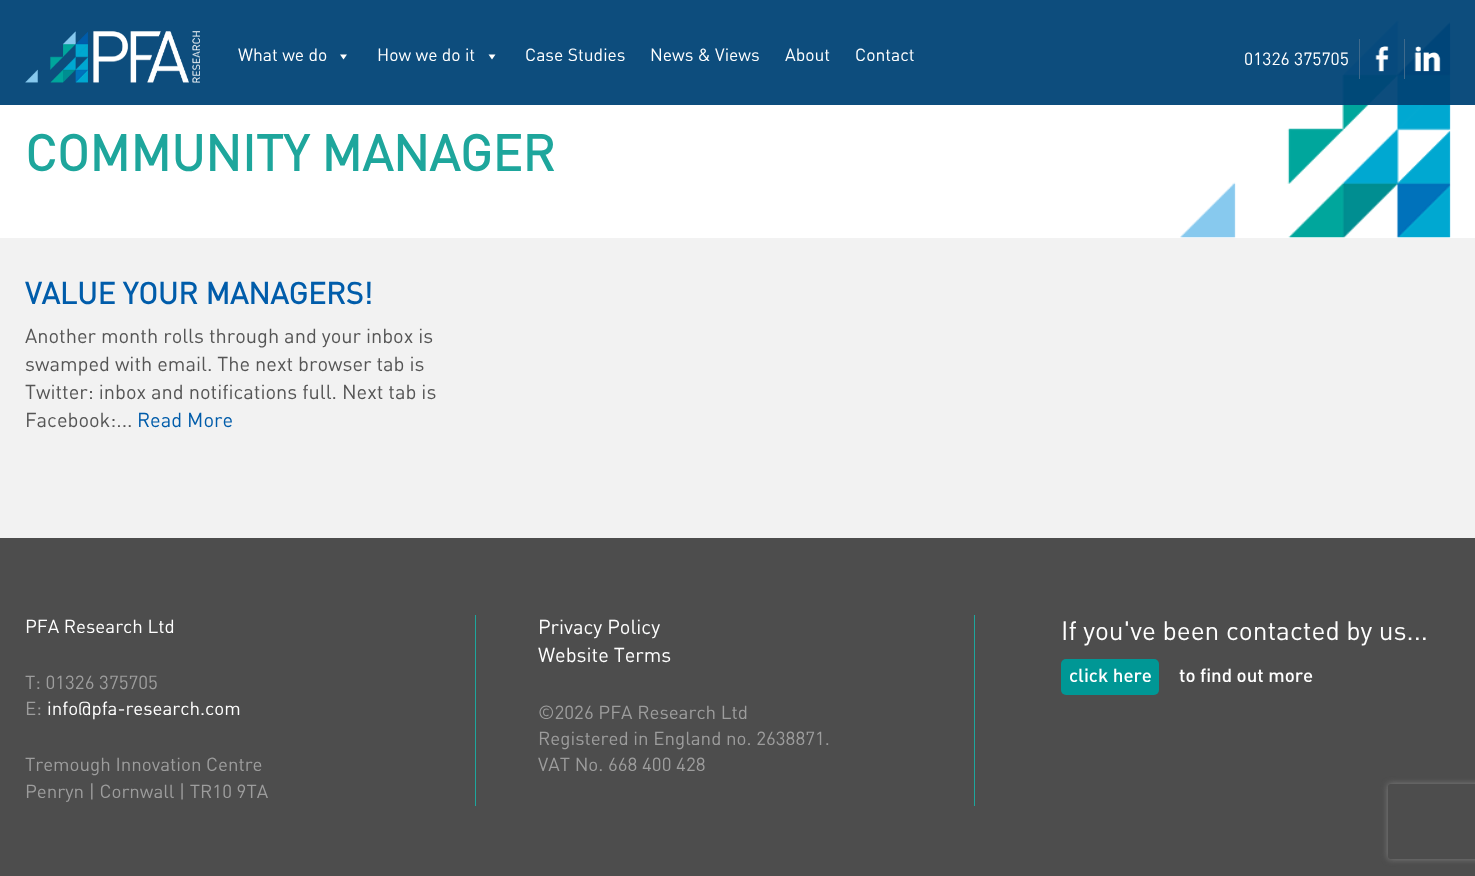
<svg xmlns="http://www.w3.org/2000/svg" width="1475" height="876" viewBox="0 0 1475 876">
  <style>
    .t1 { font: 17.5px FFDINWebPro; fill: #fff; }
    .t2 { font: bold 50px FFDINWebPro; fill: #1ea69c; }
    .t3 { font: bold 30px FFDINWebPro; fill: #005caa; }
    .t4 { font: 20px FFDINWebPro; fill: #555; }
    .t5 { font: 20px FFDINWebPro; fill: #005caa; }
    .t6 { font: 18.75px FFDINWebPro; fill: #fff; }
    .t7 { font: 18.75px FFDINWebPro; fill: #9d9d9d; }
    .t8 { font: 20px FFDINWebPro; fill: #fff; }
    .t9 { font: 26.25px FFDINWebPro; fill: #fff; }
    .t10 { font: 18.75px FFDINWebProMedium; fill: #fff; }
  </style>
  <defs>
    <clipPath id="clip1"><path d="M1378 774H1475V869H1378ZM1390.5 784H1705.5C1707 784 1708 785 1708 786.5V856.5C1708 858 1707 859 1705.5 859H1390.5C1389 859 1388 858 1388 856.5V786.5C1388 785 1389 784 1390.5 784Z" clip-rule="evenodd"/></clipPath>
  </defs>
  <rect width="100%" height="100%" fill="#fff"/>
  <image x="1180" y="20" width="271" height="218" href="images/4.png"/>
  <rect x="0" y="0" width="1475" height="105" fill="#004376f2"/>
  <image x="25" y="31" width="175" height="52" href="images/1.png"/>
  <text x="238" y="61" class="t1">What we do</text>
  <path d="M347 54.5L343.5 59.5L340 54.5Z" fill="#fff"/>
  <text x="377" y="61" class="t1">How we do it</text>
  <path d="M495.5 54.5L492 59.5L488.5 54.5Z" fill="#fff"/>
  <text x="525" y="61" class="t1">Case Studies</text>
  <text x="650" y="61" class="t1">News &amp; Views</text>
  <text x="785" y="61" class="t1">About</text>
  <text x="855" y="61" class="t1">Contact</text>
  <text x="1244" y="65" class="t1">01326 375705</text>
  <rect x="1359" y="39" width="1" height="40" fill="#3f6a8c"/>
  <image x="1375" y="46" width="14" height="26" href="images/2.png"/>
  <rect x="1404" y="39" width="1" height="40" fill="#3f6a8c"/>
  <image x="1414" y="46" width="27" height="26" href="images/3.png"/>
  <text x="25" y="171" class="t2">COMMUNITY MANAGER</text>
  <rect x="0" y="238" width="1475" height="300" fill="#f2f2f2"/>
  <text x="25" y="304" class="t3">VALUE YOUR MANAGERS!</text>
  <text x="25" y="343" class="t4">Another month rolls through and your inbox is</text>
  <text x="25" y="371" class="t4">swamped with email. The next browser tab is</text>
  <text x="25" y="399" class="t4">Twitter: inbox and notifications full. Next tab is</text>
  <text x="25" y="427" class="t4">Facebook:...</text>
  <text x="137" y="427" class="t5">Read More</text>
  <rect x="0" y="538" width="1475" height="338" fill="#4d4d4d"/>
  <text x="25" y="633" class="t6">PFA Research Ltd</text>
  <text x="25" y="689" class="t7">T: 01326 375705</text>
  <text x="25" y="715" class="t7">E:</text>
  <text x="47" y="715" class="t6">info@pfa-research.com</text>
  <text x="25" y="771" class="t7">Tremough Innovation Centre</text>
  <text x="25" y="798" class="t7">Penryn | Cornwall | TR10 9TA</text>
  <rect x="974" y="615" width="1" height="191" fill="#1ea69c"/>
  <rect x="475" y="615" width="1" height="191" fill="#1ea69c"/>
  <text x="538" y="634" class="t8">Privacy Policy</text>
  <text x="538" y="662" class="t8">Website Terms</text>
  <text x="538" y="719" class="t7">©2026 PFA Research Ltd</text>
  <text x="538" y="745" class="t7">Registered in England no. 2638871.</text>
  <text x="538" y="771" class="t7">VAT No. 668 400 428</text>
  <text x="1061" y="640" class="t9">If you've been contacted by us...</text>
  <rect x="1061" y="659" width="98" height="36" rx="5" fill="#009795"/>
  <text x="1069" y="682" class="t10">click here</text>
  <text x="1179" y="682" class="t10">to find out more</text>
  <g clip-path="url(#clip1)">
    <rect x="1388" y="784" width="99" height="75" rx="2.5" fill="#808080" filter="blur(3px)"/>
  </g>
</svg>
